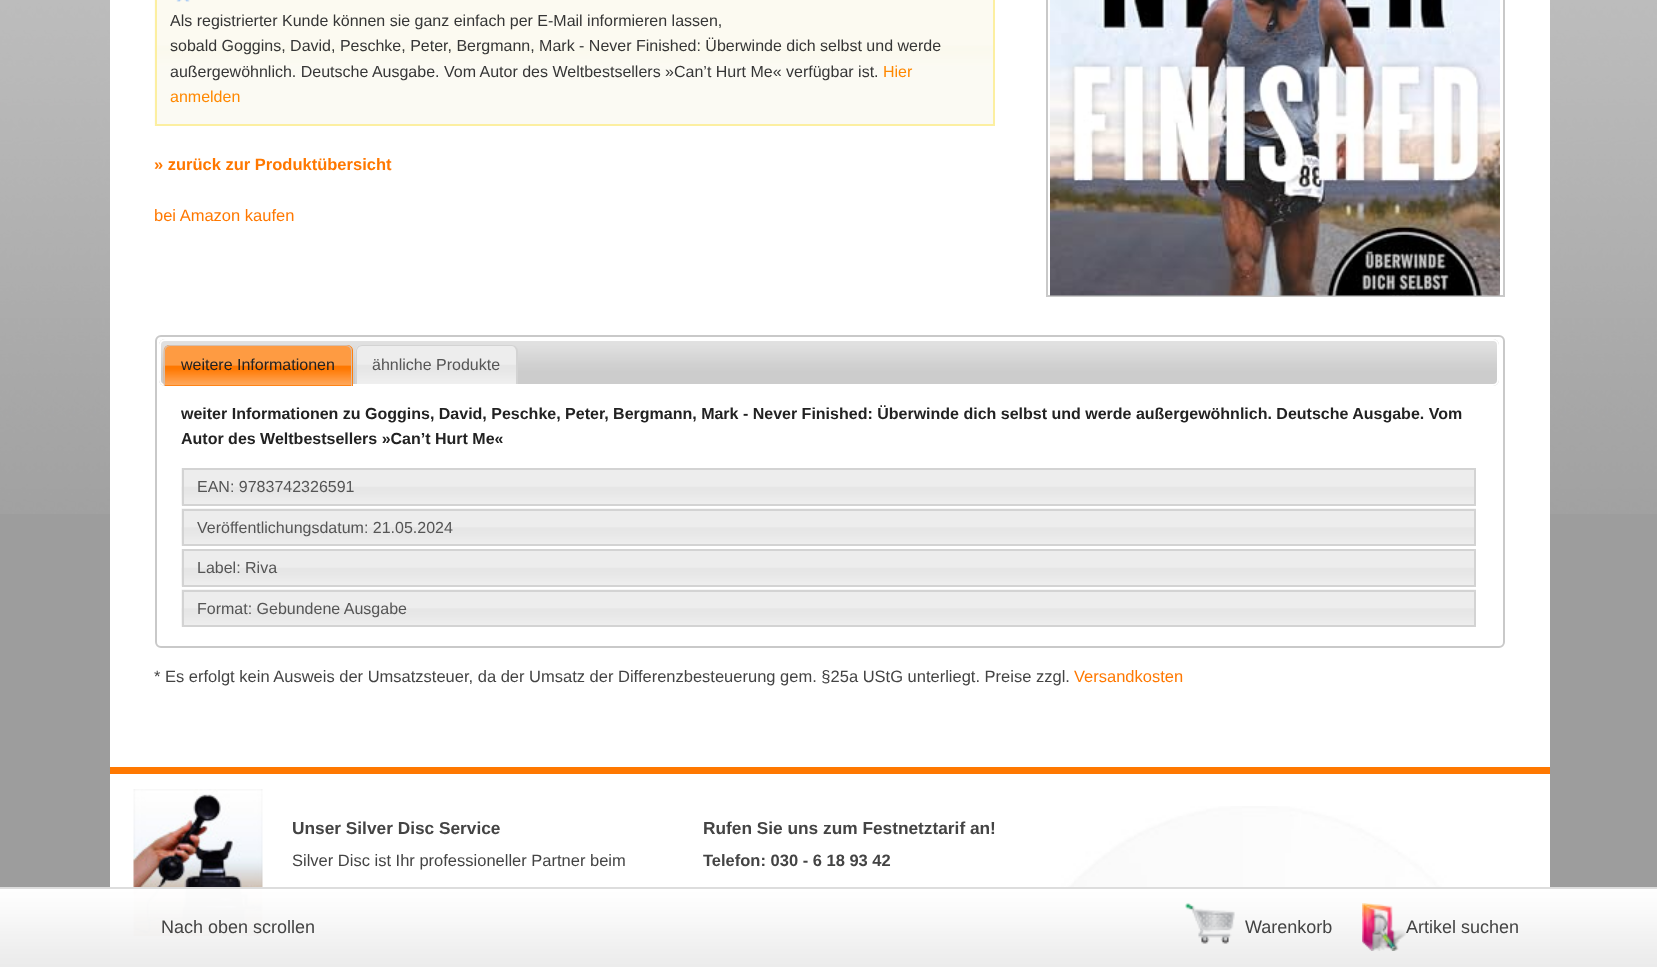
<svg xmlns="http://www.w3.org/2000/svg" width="1657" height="967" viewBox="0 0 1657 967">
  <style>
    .t1 { font: 16px Liberation Sans; fill: #363636; }
    .t2 { font: 16px Liberation Sans; fill: #f80; }
    .t3 { font: bold 16.5px Liberation Sans; fill: #ff7800; }
    .t4 { font: 16.5px Liberation Sans; fill: #ff7800; }
    .t5 { font: 16px Liberation Sans; fill: #222; }
    .t6 { font: 16px Liberation Sans; fill: #555; }
    .t7 { font: bold 16px Liberation Sans; fill: #222; }
    .t8 { font: 16.5px Liberation Sans; fill: #444; }
    .t9 { font: bold 17.3px Liberation Sans; fill: #444; }
    .t10 { font: bold 16.5px Liberation Sans; fill: #444; }
    .t11 { font: 18px Liberation Sans; fill: #444; }
  </style>
  <rect width="100%" height="100%" fill="#9d9d9d"/>
  <image x="0" y="0" width="1657" height="514" href="images/1.png"/>
  <rect x="110" y="0" width="1440" height="767" fill="#fff"/>
  <image x="154" y="0" width="839" height="126" href="images/2.png"/>
  <rect x="156" y="-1" width="838" height="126" fill="none" stroke="#fcefa1" stroke-width="2"/>
  <image x="176" y="0" width="14" height="2" href="images/3.png"/>
  <text x="170" y="26" class="t1">Als registrierter Kunde können sie ganz einfach per E-Mail informieren lassen,</text>
  <text x="170" y="51" class="t1">sobald Goggins, David, Peschke, Peter, Bergmann, Mark - Never Finished: Überwinde dich selbst und werde</text>
  <text x="170" y="77" class="t1">außergewöhnlich. Deutsche Ausgabe. Vom Autor des Weltbestsellers »Can’t Hurt Me« verfügbar ist.</text>
  <text x="883" y="77" class="t2">Hier</text>
  <text x="170" y="102" class="t2">anmelden</text>
  <text x="154" y="170" class="t3">» zurück zur Produktübersicht</text>
  <rect x="1047" y="-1" width="457" height="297" fill="none" stroke="#c9c9c9" stroke-width="2"/>
  <image x="1050" y="0" width="450" height="296" href="images/4.png"/>
  <text x="154" y="221" class="t4">bei Amazon kaufen</text>
  <rect x="156" y="336" width="1348" height="311" rx="5" fill="none" stroke="#c9c9c9" stroke-width="2"/>
  <rect x="159" y="339" width="1340" height="47" rx="6" fill="#ccc"/>
  <image x="159" y="339" width="1340" height="44" href="images/5.png"/>
  <rect x="160" y="340" width="1338" height="45" rx="5" fill="none" stroke="#fff" stroke-width="2"/>
  <path d="M170 345H347C350.5 345 353 347.5 353 351V386H164V351C164 347.5 166.5 345 170 345Z" fill="#ff7800"/>
  <image x="163" y="345" width="190" height="41" href="images/6.png"/>
  <path d="M170 345H346C350 345 352 348 352 351V386H164V351C164 348 166 345 170 345ZM170 346H346C349 346 351 349 351 351V386H165V351C165 349 167 346 170 346Z" fill="#d5bfaf" fill-rule="evenodd"/>
  <text x="181" y="370" class="t5">weitere Informationen</text>
  <image x="355" y="345" width="162" height="39" href="images/7.png"/>
  <path d="M362 345H512C515 345 518 348 518 351V384H356V351C356 348 358 345 362 345ZM362 346H512C514 346 516 349 516 351V384H357V351C357 349 359 346 362 346Z" fill="#d3d3d3" fill-rule="evenodd"/>
  <text x="372" y="370" class="t6">ähnliche Produkte</text>
  <text x="181" y="419" class="t7">weiter Informationen zu Goggins, David, Peschke, Peter, Bergmann, Mark - Never Finished: Überwinde dich selbst und werde außergewöhnlich. Deutsche Ausgabe. Vom</text>
  <text x="181" y="444" class="t7">Autor des Weltbestsellers »Can’t Hurt Me«</text>
  <image x="181" y="468" width="1293" height="38" href="images/8.png"/>
  <rect x="183" y="469" width="1292" height="36" fill="none" stroke="#d3d3d3" stroke-width="2"/>
  <text x="197" y="492" class="t6">EAN: 9783742326591</text>
  <image x="181" y="508" width="1295" height="38" href="images/9.png"/>
  <rect x="183" y="510" width="1292" height="35" fill="none" stroke="#d3d3d3" stroke-width="2"/>
  <text x="197" y="533" class="t6">Veröffentlichungsdatum: 21.05.2024</text>
  <image x="181" y="549" width="1293" height="38" href="images/8.png"/>
  <rect x="183" y="550" width="1292" height="36" fill="none" stroke="#d3d3d3" stroke-width="2"/>
  <text x="197" y="573" class="t6">Label: Riva</text>
  <image x="181" y="589" width="1295" height="38" href="images/9.png"/>
  <rect x="183" y="591" width="1292" height="35" fill="none" stroke="#d3d3d3" stroke-width="2"/>
  <text x="197" y="614" class="t6">Format: Gebundene Ausgabe</text>
  <text x="154" y="682" class="t8">* Es erfolgt kein Ausweis der Umsatzsteuer, da der Umsatz der Differenzbesteuerung gem. §25a UStG unterliegt. Preise zzgl.</text>
  <text x="1074" y="682" class="t4">Versandkosten</text>
  <rect x="110" y="767" width="1440" height="7" fill="#ff7800"/>
  <rect x="110" y="774" width="1440" height="193" fill="#fff"/>
  <image x="1020" y="806" width="469" height="161" href="images/10.png"/>
  <image x="133" y="789" width="130" height="147" href="images/11.png"/>
  <text x="292" y="834" class="t9">Unser Silver Disc Service</text>
  <text x="292" y="866" class="t8">Silver Disc ist Ihr professioneller Partner beim</text>
  <text x="703" y="834" class="t9">Rufen Sie uns zum Festnetztarif an!</text>
  <text x="703" y="866" class="t10">Telefon: 030 - 6 18 93 42</text>
  <image x="0" y="887" width="1657" height="80" href="images/12.png"/>
  <rect x="0" y="887" width="1657" height="2" fill="#ddddddfc"/>
  <text x="161" y="933" class="t11">Nach oben scrollen</text>
  <image x="1185" y="903" width="50" height="41" href="images/13.png"/>
  <text x="1245" y="933" class="t11">Warenkorb</text>
  <image x="1362" y="903" width="45" height="48" href="images/14.png"/>
  <text x="1406" y="933" class="t11">Artikel suchen</text>
</svg>
